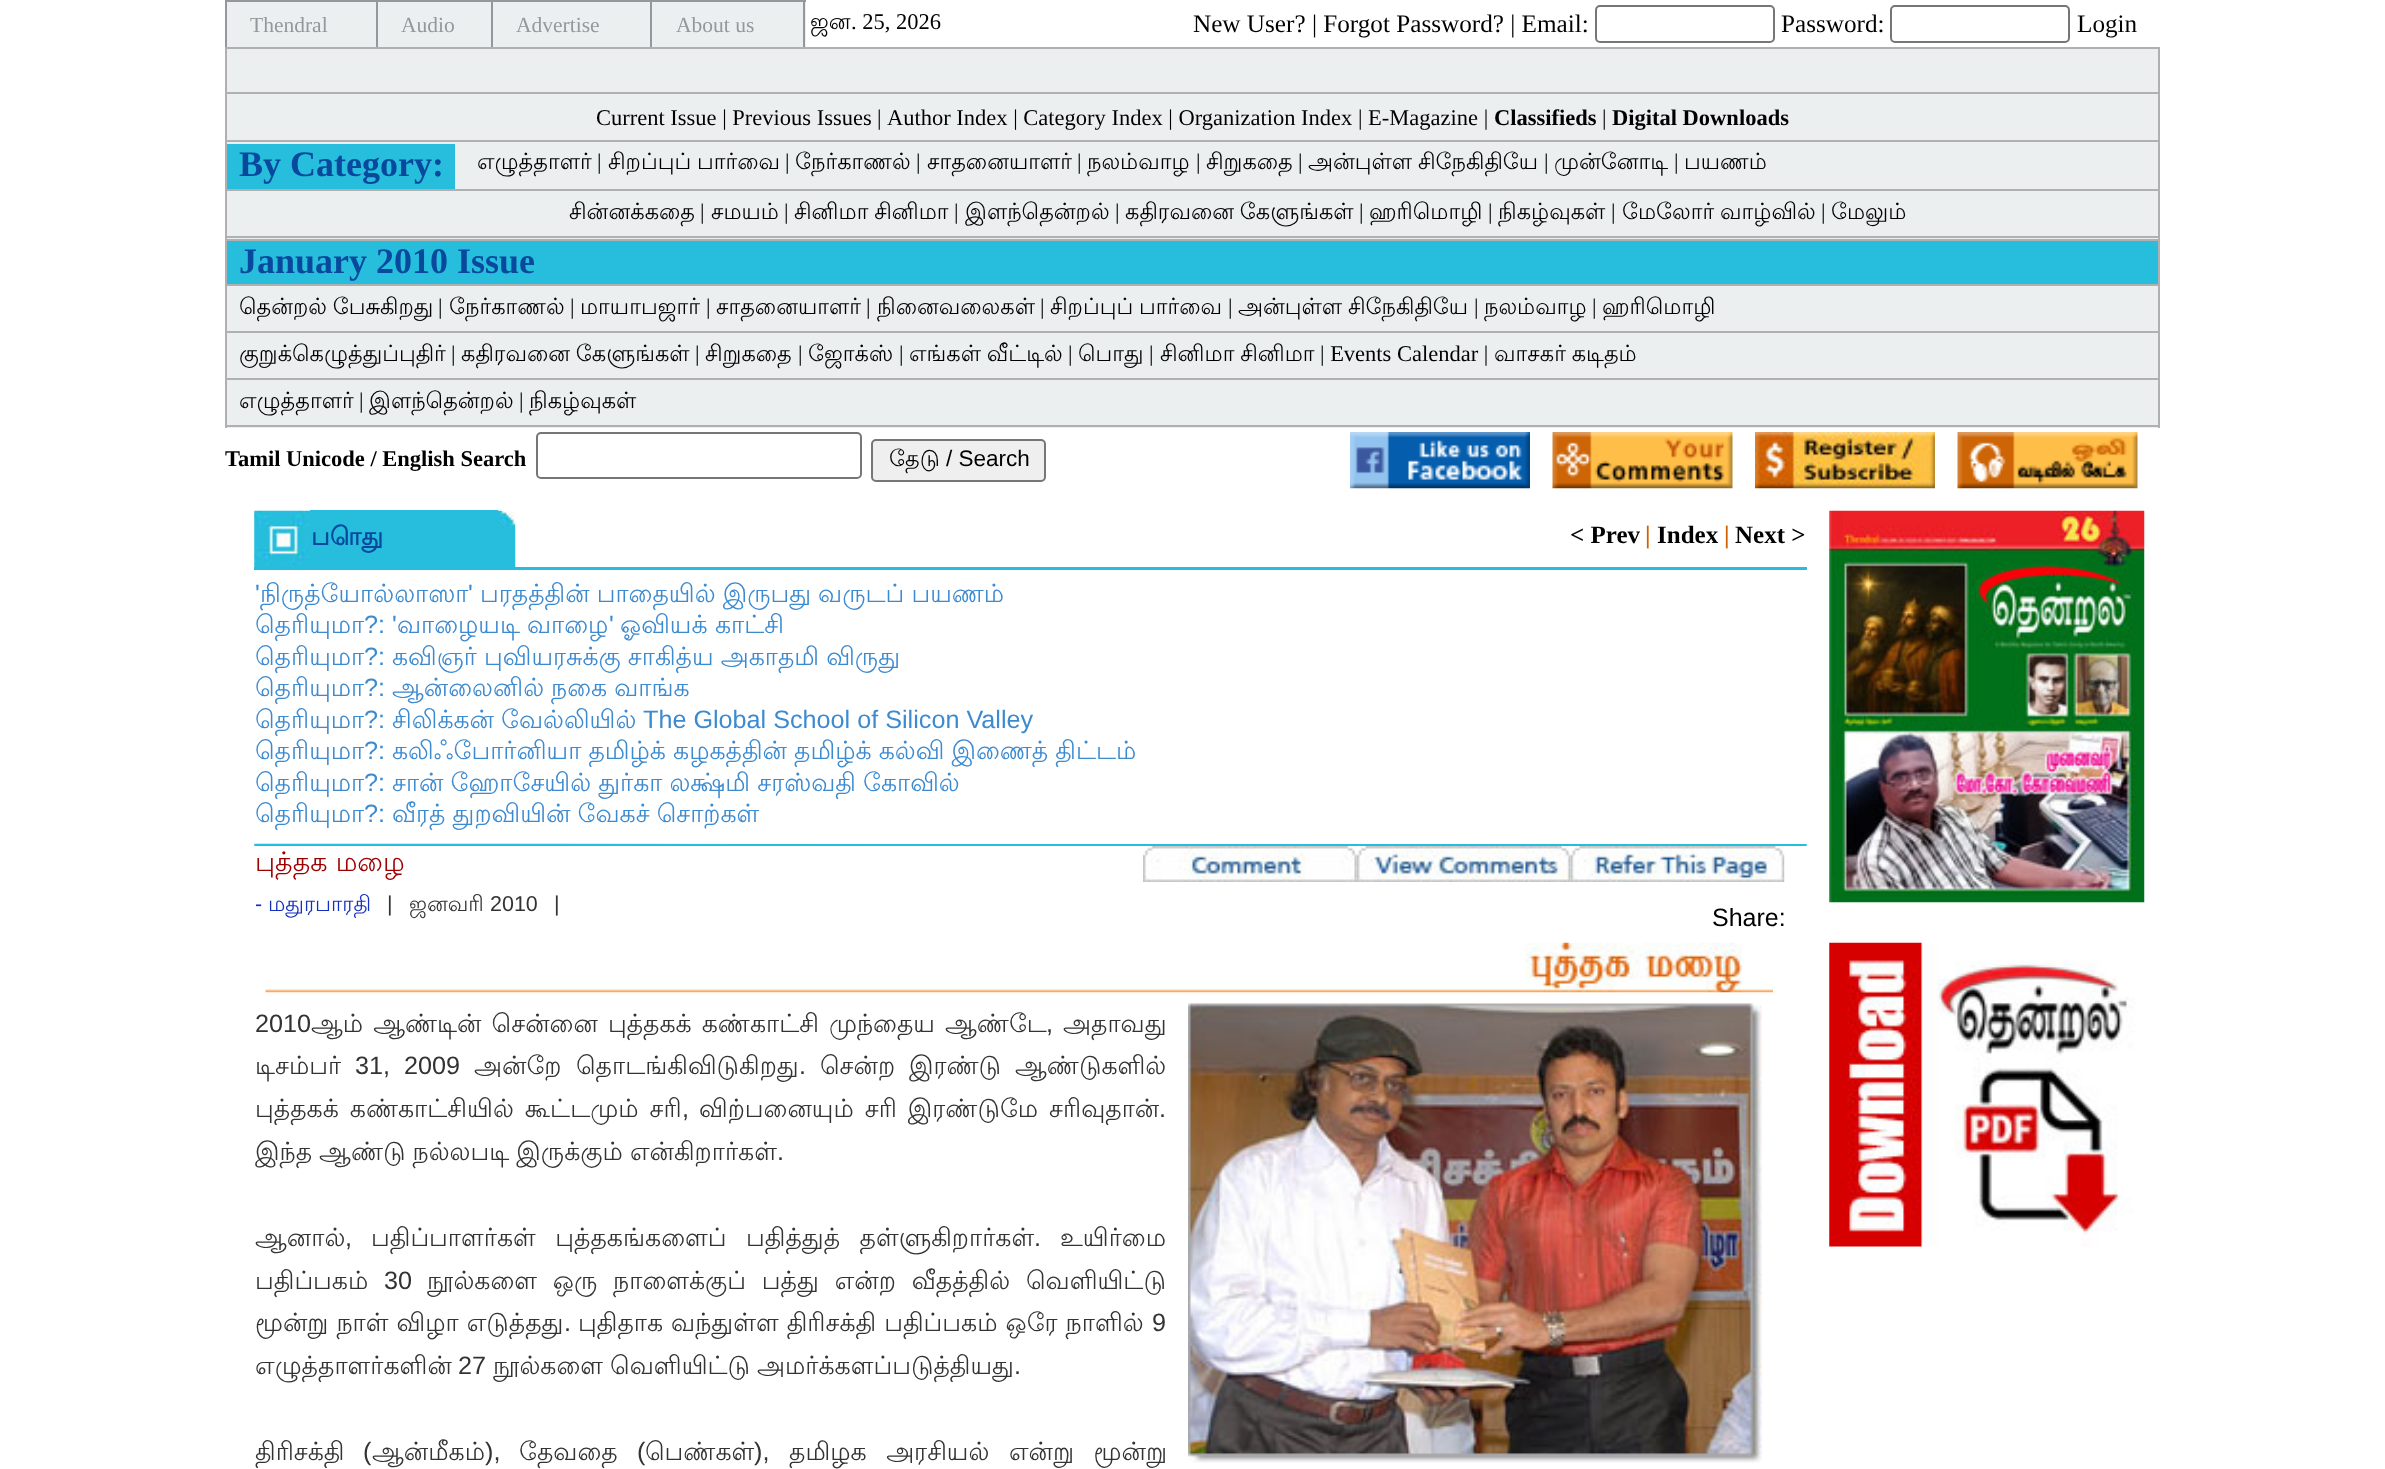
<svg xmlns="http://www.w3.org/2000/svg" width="2385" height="1469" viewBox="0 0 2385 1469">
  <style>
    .t1 { font: 21.5px Liberation Serif; fill: #94979b; }
    .t2 { font: 22.5px Lohit Tamil; fill: #000; }
    .t3 { font: 22.5px Liberation Serif; fill: #000; }
    .t4 { font: 25.2px Liberation Serif; fill: #000; }
    .t5 { font: bold 22.5px Liberation Serif; fill: #000; }
    .t6 { font: bold 36px Liberation Serif; fill: #08499d; }
    .t7 { font: 22.5px Liberation Sans; fill: #000; }
    .t8 { font: bold 25.2px Lohit Tamil; fill: #08499d; }
    .t9 { font: bold 25px Liberation Serif; fill: #000; }
    .t10 { font: bold 25px Liberation Serif; fill: #d16200; }
    .t11 { font: 25.2px Liberation Sans; fill: #3c8ad0; }
    .t12 { font: 25.2px Lohit Tamil; fill: #3c8ad0; }
    .t13 { font: 27px Lohit Tamil; fill: #9e0000; }
    .t14 { font: 21.5px Liberation Sans; fill: #132fbf; }
    .t15 { font: 21.5px Lohit Tamil; fill: #132fbf; }
    .t16 { font: 21.5px Liberation Sans; fill: #333; }
    .t17 { font: 21.5px Lohit Tamil; fill: #333; }
    .t18 { font: 25px Liberation Sans; fill: #000; }
    .t19 { font: 25.2px Liberation Sans; fill: #333; }
    .t20 { font: 25.2px Lohit Tamil; fill: #333; }
  </style>
  <rect width="100%" height="100%" fill="#fff"/>
  <rect x="227" y="2" width="579" height="45" fill="#ebeff0"/>
  <rect x="225" y="0" width="581" height="2" fill="#94979b"/>
  <rect x="376" y="0" width="2" height="47" fill="#94979b"/>
  <rect x="225" y="0" width="2" height="47" fill="#94979b"/>
  <text x="250" y="32" class="t1">Thendral</text>
  <rect x="491" y="0" width="2" height="47" fill="#94979b"/>
  <text x="401" y="32" class="t1">Audio</text>
  <rect x="650" y="0" width="2" height="47" fill="#94979b"/>
  <text x="516" y="32" class="t1">Advertise</text>
  <rect x="803" y="0" width="2" height="47" fill="#94979b"/>
  <text x="676" y="32" class="t1">About us</text>
  <text x="810" y="29" class="t2">ஜன</text>
  <text x="851" y="29" class="t3">. 25, 2026</text>
  <text x="1193" y="32" class="t4">New User? | Forgot Password? | Email:</text>
  <rect x="1596" y="6" width="178" height="36" rx="4" fill="none" stroke="#767676" stroke-width="2"/>
  <text x="1781" y="32" class="t4">Password:</text>
  <rect x="1891" y="6" width="178" height="36" rx="4" fill="none" stroke="#767676" stroke-width="2"/>
  <text x="2077" y="32" class="t4">Login</text>
  <rect x="227" y="49" width="1931" height="190" fill="#ebeff0"/>
  <rect x="225" y="47" width="1935" height="2" fill="#b0b0b0"/>
  <rect x="227" y="92" width="1933" height="2" fill="#b0b0b0"/>
  <rect x="227" y="140" width="1933" height="2" fill="#b0b0b0"/>
  <rect x="227" y="189" width="1933" height="2" fill="#b0b0b0"/>
  <rect x="2158" y="47" width="2" height="192" fill="#b0b0b0"/>
  <rect x="225" y="236" width="1935" height="2" fill="#b0b0b0"/>
  <rect x="225" y="47" width="2" height="192" fill="#b0b0b0"/>
  <text x="596" y="125" class="t3">Current Issue | Previous Issues</text>
  <text x="877" y="125" class="t3">|</text>
  <text x="887" y="125" class="t3">Author Index | Category Index | Organization Index | E-Magazine |</text>
  <text x="1494" y="125" class="t5">Classifieds</text>
  <text x="1602" y="125" class="t3">|</text>
  <text x="1612" y="125" class="t5">Digital Downloads</text>
  <rect x="227" y="144" width="228" height="45" fill="#27bedd"/>
  <text x="239" y="176" class="t6">By Category:</text>
  <text x="477" y="169" class="t2">எழுத்தாளர்</text>
  <text x="597" y="169" class="t3">|</text>
  <text x="608" y="169" word-spacing="-1" class="t2">சிறப்புப் பார்வை</text>
  <text x="785" y="169" class="t3">|</text>
  <text x="795" y="169" class="t2">நேர்காணல்</text>
  <text x="916" y="169" class="t3">|</text>
  <text x="927" y="169" class="t2">சாதனையாளர்</text>
  <text x="1077" y="169" class="t3">|</text>
  <text x="1087" y="169" class="t2">நலம்வாழ</text>
  <text x="1196" y="169" class="t3">|</text>
  <text x="1206" y="169" class="t2">சிறுகதை</text>
  <text x="1298" y="169" class="t3">|</text>
  <text x="1308" y="169" word-spacing="-1" class="t2">அன்புள்ள சிநேகிதியே</text>
  <text x="1544" y="169" class="t3">|</text>
  <text x="1554" y="169" class="t2">முன்னோடி</text>
  <text x="1674" y="169" class="t3">|</text>
  <text x="1684" y="169" class="t2">பயணம்</text>
  <text x="569" y="219" class="t2">சின்னக்கதை</text>
  <text x="700" y="219" class="t3">|</text>
  <text x="711" y="219" class="t2">சமயம்</text>
  <text x="784" y="219" class="t3">|</text>
  <text x="794" y="219" word-spacing="-1" class="t2">சினிமா சினிமா</text>
  <text x="954" y="219" class="t3">|</text>
  <text x="965" y="219" class="t2">இளந்தென்றல்</text>
  <text x="1115" y="219" class="t3">|</text>
  <text x="1125" y="219" word-spacing="-1" class="t2">கதிரவனை கேளுங்கள்</text>
  <text x="1359" y="219" class="t3">|</text>
  <text x="1369" y="219" class="t2">ஹரிமொழி</text>
  <text x="1488" y="219" class="t3">|</text>
  <text x="1498" y="219" class="t2">நிகழ்வுகள்</text>
  <text x="1611" y="219" class="t3">|</text>
  <text x="1622" y="219" word-spacing="-1" class="t2">மேலோர் வாழ்வில்</text>
  <text x="1821" y="219" class="t3">|</text>
  <text x="1831" y="219" class="t2">மேலும்</text>
  <rect x="227" y="286" width="1931" height="142" fill="#ebeff0"/>
  <rect x="225" y="239" width="1935" height="2" fill="#b0b0b0"/>
  <rect x="227" y="284" width="1933" height="2" fill="#b0b0b0"/>
  <rect x="227" y="331" width="1933" height="2" fill="#b0b0b0"/>
  <rect x="227" y="378" width="1933" height="2" fill="#b0b0b0"/>
  <rect x="2158" y="239" width="2" height="189" fill="#b0b0b0"/>
  <rect x="225" y="425" width="1935" height="2" fill="#b0b0b0"/>
  <rect x="225" y="239" width="2" height="189" fill="#b0b0b0"/>
  <rect x="227" y="241" width="1931" height="43" fill="#27bedd"/>
  <text x="239" y="273" class="t6">January 2010 Issue</text>
  <text x="239" y="314" word-spacing="-1" class="t2">தென்றல் பேசுகிறது</text>
  <text x="438" y="314" class="t3">|</text>
  <text x="449" y="314" class="t2">நேர்காணல்</text>
  <text x="570" y="314" class="t3">|</text>
  <text x="580" y="314" class="t2">மாயாபஜார்</text>
  <text x="706" y="314" class="t3">|</text>
  <text x="716" y="314" class="t2">சாதனையாளர்</text>
  <text x="866" y="314" class="t3">|</text>
  <text x="877" y="314" class="t2">நினைவலைகள்</text>
  <text x="1040" y="314" class="t3">|</text>
  <text x="1050" y="314" word-spacing="-1" class="t2">சிறப்புப் பார்வை</text>
  <text x="1228" y="314" class="t3">|</text>
  <text x="1238" y="314" word-spacing="-1" class="t2">அன்புள்ள சிநேகிதியே</text>
  <text x="1474" y="314" class="t3">|</text>
  <text x="1484" y="314" class="t2">நலம்வாழ</text>
  <text x="1592" y="314" class="t3">|</text>
  <text x="1602" y="314" class="t2">ஹரிமொழி</text>
  <text x="239" y="361" class="t2">குறுக்கெழுத்துப்புதிர்</text>
  <text x="451" y="361" class="t3">|</text>
  <text x="461" y="361" word-spacing="-1" class="t2">கதிரவனை கேளுங்கள்</text>
  <text x="695" y="361" class="t3">|</text>
  <text x="705" y="361" class="t2">சிறுகதை</text>
  <text x="798" y="361" class="t3">|</text>
  <text x="808" y="361" class="t2">ஜோக்ஸ்</text>
  <text x="899" y="361" class="t3">|</text>
  <text x="909" y="361" word-spacing="-1" class="t2">எங்கள் வீட்டில்</text>
  <text x="1068" y="361" class="t3">|</text>
  <text x="1078" y="361" class="t2">பொது</text>
  <text x="1149" y="361" class="t3">|</text>
  <text x="1160" y="361" word-spacing="-1" class="t2">சினிமா சினிமா</text>
  <text x="1320" y="361" class="t3">| Events Calendar |</text>
  <text x="1494" y="361" word-spacing="-1" class="t2">வாசகர் கடிதம்</text>
  <text x="239" y="408" class="t2">எழுத்தாளர்</text>
  <text x="359" y="408" class="t3">|</text>
  <text x="369" y="408" class="t2">இளந்தென்றல்</text>
  <text x="519" y="408" class="t3">|</text>
  <text x="529" y="408" class="t2">நிகழ்வுகள்</text>
  <text x="225" y="466" class="t5">Tamil Unicode / English Search</text>
  <rect x="537" y="433" width="324" height="45" rx="4" fill="none" stroke="#767676" stroke-width="2"/>
  <rect x="872" y="440" width="173" height="41" rx="4" fill="#efefef" stroke="#767676" stroke-width="2"/>
  <text x="889" y="466" class="t2">தேடு</text>
  <text x="946" y="466" class="t7">/ Search</text>
  <image x="1350" y="432" width="180" height="57" href="images/1.png"/>
  <image x="1552" y="432" width="181" height="57" href="images/2.png"/>
  <image x="1755" y="432" width="180" height="57" href="images/3.png"/>
  <image x="1957" y="432" width="181" height="57" href="images/4.png"/>
  <image x="254" y="510" width="56" height="57" href="images/5.png"/>
  <rect x="310" y="510" width="188" height="57" fill="#27bedd"/>
  <text x="311" y="545" class="t8">பொது</text>
  <image x="497" y="510" width="19" height="57" href="images/6.png"/>
  <text x="1570" y="543" class="t9">&lt; Prev</text>
  <text x="1645" y="543" class="t10">|</text>
  <text x="1657" y="543" class="t9">Index</text>
  <text x="1724" y="543" class="t10">|</text>
  <text x="1735" y="543" class="t9">Next &gt;</text>
  <rect x="254" y="567" width="1553" height="3" fill="#27bedd"/>
  <text x="255" y="602" class="t11">'</text>
  <text x="260" y="602" class="t12">நிருத்யோல்லாஸா</text>
  <text x="468" y="602" class="t11">'</text>
  <text x="480" y="602" word-spacing="-0.5" class="t12">பரதத்தின் பாதையில் இருபது வருடப் பயணம்</text>
  <text x="255" y="633" class="t12">தெரியுமா</text>
  <text x="364" y="633" class="t11">?: '</text>
  <text x="609" y="633" class="t11">'</text>
  <text x="620" y="633" class="t12">ஓவியக்</text>
  <text x="715" y="633" class="t12">காட்சி</text>
  <text x="397" y="633" class="t12">வாழையடி</text>
  <text x="527" y="633" class="t12">வாழை</text>
  <text x="255" y="665" class="t12">தெரியுமா</text>
  <text x="364" y="665" class="t11">?:</text>
  <text x="392" y="665" word-spacing="-0.5" class="t12">கவிஞர் புவியரசுக்கு சாகித்ய அகாதமி விருது</text>
  <text x="255" y="696" class="t12">தெரியுமா</text>
  <text x="364" y="696" class="t11">?:</text>
  <text x="392" y="696" word-spacing="-0.5" class="t12">ஆன்லைனில் நகை வாங்க</text>
  <text x="255" y="728" class="t12">தெரியுமா</text>
  <text x="364" y="728" class="t11">?:</text>
  <text x="392" y="728" class="t12">சிலிக்கன்</text>
  <text x="501" y="728" class="t12">வேல்லியில்</text>
  <text x="643" y="728" class="t11">The Global School of Silicon Valley</text>
  <text x="255" y="759" class="t12">தெரியுமா</text>
  <text x="364" y="759" class="t11">?:</text>
  <text x="392" y="759" word-spacing="-0.5" class="t12">கலிஃபோர்னியா தமிழ்க் கழகத்தின் தமிழ்க் கல்வி இணைத் திட்டம்</text>
  <text x="255" y="791" class="t12">தெரியுமா</text>
  <text x="364" y="791" class="t11">?:</text>
  <text x="392" y="791" word-spacing="-0.5" class="t12">சான் ஹோசேயில் துர்கா லக்ஷ்மி சரஸ்வதி கோவில்</text>
  <text x="255" y="822" class="t12">தெரியுமா</text>
  <text x="364" y="822" class="t11">?:</text>
  <text x="392" y="822" word-spacing="-0.5" class="t12">வீரத் துறவியின் வேகச் சொற்கள்</text>
  <image x="254" y="843" width="1553" height="3" href="images/7.png"/>
  <text x="255" y="871" class="t13">புத்தக மழை</text>
  <image x="1143" y="846" width="214" height="36" href="images/8.png"/>
  <image x="1356" y="846" width="215" height="36" href="images/9.png"/>
  <image x="1570" y="846" width="215" height="36" href="images/10.png"/>
  <text x="255" y="911" class="t14">-</text>
  <text x="268" y="911" class="t15">மதுரபாரதி</text>
  <text x="387" y="911" class="t16">|</text>
  <text x="409" y="911" class="t17">ஜனவரி</text>
  <text x="490" y="911" class="t16">2010</text>
  <text x="554" y="911" class="t16">|</text>
  <text x="1712" y="926" class="t18">Share:</text>
  <image x="265" y="942" width="1508" height="51" href="images/11.png"/>
  <text x="255" y="1032" class="t19">2010</text>
  <text x="311" y="1032" word-spacing="2.5" class="t20">ஆம் ஆண்டின் சென்னை புத்தகக் கண்காட்சி முந்தைய ஆண்டே</text>
  <text x="1046" y="1032" class="t19">,</text>
  <text x="1063" y="1032" class="t20">அதாவது</text>
  <image x="1188" y="1003" width="574" height="460" href="images/12.png"/>
  <text x="255" y="1074" class="t20">டிசம்பர்</text>
  <text x="355" y="1074" word-spacing="7" class="t19">31, 2009</text>
  <text x="474" y="1074" class="t20">அன்றே</text>
  <text x="576" y="1074" class="t20">தொடங்கிவிடுகிறது</text>
  <text x="799" y="1074" class="t19">.</text>
  <text x="820" y="1074" class="t20">சென்ற</text>
  <text x="909" y="1074" class="t20">இரண்டு</text>
  <text x="1015" y="1074" class="t20">ஆண்டுகளில்</text>
  <text x="255" y="1117" word-spacing="3.5" class="t20">புத்தகக் கண்காட்சியில் கூட்டமும் சரி</text>
  <text x="682" y="1117" class="t19">,</text>
  <text x="699" y="1117" word-spacing="3.5" class="t20">விற்பனையும் சரி இரண்டுமே சரிவுதான்</text>
  <text x="1159" y="1117" class="t19">.</text>
  <text x="255" y="1160" word-spacing="-0.5" class="t20">இந்த ஆண்டு நல்லபடி இருக்கும் என்கிறார்கள்</text>
  <text x="777" y="1160" class="t19">.</text>
  <text x="255" y="1246" class="t20">ஆனால்</text>
  <text x="345" y="1246" class="t19">,</text>
  <text x="371" y="1246" word-spacing="12" class="t20">பதிப்பாளர்கள் புத்தகங்களைப் பதித்துத் தள்ளுகிறார்கள்</text>
  <text x="1034" y="1246" class="t19">.</text>
  <text x="1060" y="1246" class="t20">உயிர்மை</text>
  <text x="255" y="1289" class="t20">பதிப்பகம்</text>
  <text x="384" y="1289" class="t19">30</text>
  <text x="427" y="1289" word-spacing="8.25" class="t20">நூல்களை ஒரு நாளைக்குப் பத்து என்ற வீதத்தில் வெளியிட்டு</text>
  <text x="255" y="1331" word-spacing="0.5" class="t20">மூன்று நாள் விழா எடுத்தது</text>
  <text x="564" y="1331" class="t19">.</text>
  <text x="578" y="1331" word-spacing="0.5" class="t20">புதிதாக வந்துள்ள திரிசக்தி பதிப்பகம் ஒரே நாளில்</text>
  <text x="1152" y="1331" class="t19">9</text>
  <text x="255" y="1374" class="t20">எழுத்தாளர்களின்</text>
  <text x="458" y="1374" class="t19">27</text>
  <text x="493" y="1374" word-spacing="-0.5" class="t20">நூல்களை வெளியிட்டு அமர்க்களப்படுத்தியது</text>
  <text x="1014" y="1374" class="t19">.</text>
  <text x="255" y="1460" class="t20">திரிசக்தி</text>
  <text x="363" y="1460" class="t19">(</text>
  <text x="372" y="1460" class="t20">ஆன்மீகம்</text>
  <text x="485" y="1460" class="t19">),</text>
  <text x="519" y="1460" class="t20">தேவதை</text>
  <text x="637" y="1460" class="t19">(</text>
  <text x="645" y="1460" class="t20">பெண்கள்</text>
  <text x="754" y="1460" class="t19">),</text>
  <text x="789" y="1460" word-spacing="12" class="t20">தமிழக அரசியல் என்று மூன்று</text>
  <image x="1829" y="510" width="316" height="393" href="images/13.png"/>
  <image x="1829" y="942" width="306" height="305" href="images/14.png"/>
</svg>
